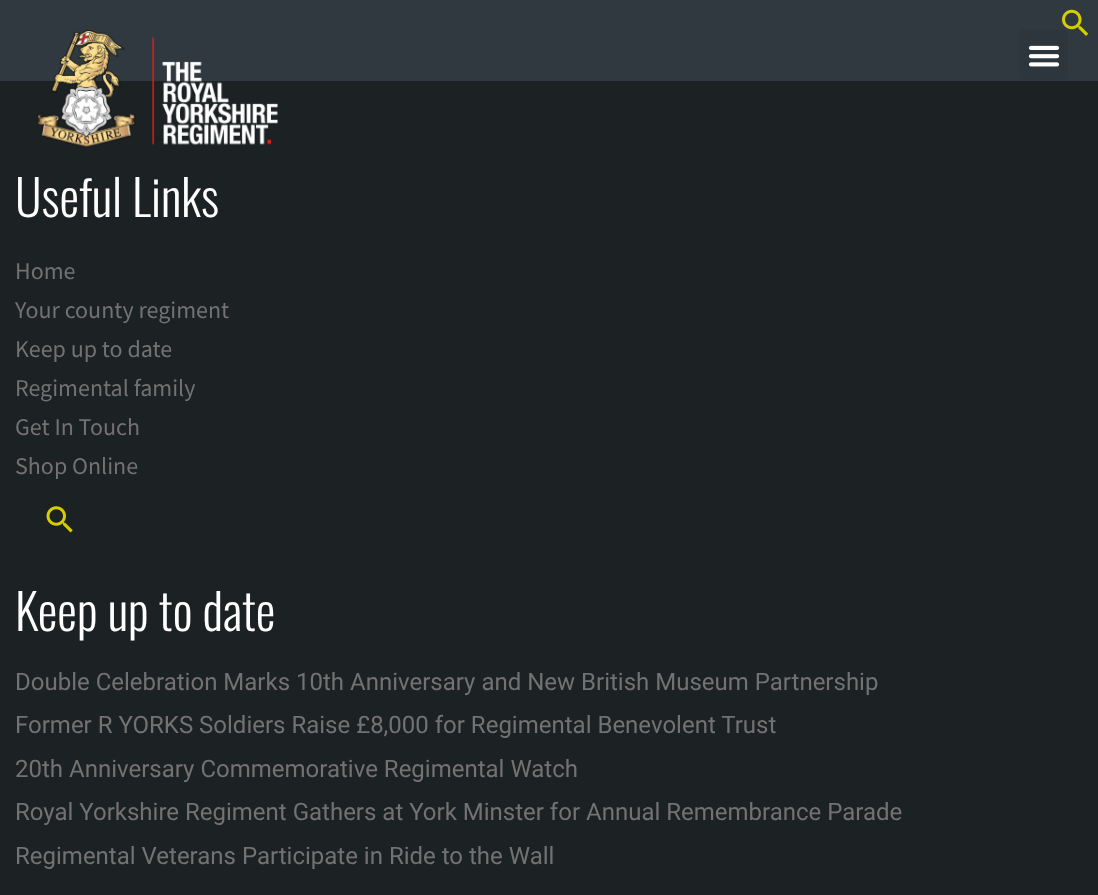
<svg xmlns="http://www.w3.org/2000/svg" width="1098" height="895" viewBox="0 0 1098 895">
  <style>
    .t1 { font: 300 49.5px Oswald; fill: #fff; }
    .t2 { font: 24px Source Sans Pro; fill: #727272; }
    .t3 { font: 24px Roboto; fill: #727272; }
  </style>
  <rect width="100%" height="100%" fill="#303940"/>
  <image x="1062" y="9" width="27" height="27" href="images/1.png"/>
  <rect x="0" y="81" width="1098" height="814" fill="#1c2123"/>
  <image x="37" y="30" width="241" height="117" href="images/2.png"/>
  <rect x="1019" y="30" width="49" height="50" rx="5" fill="#2e363d"/>
  <image x="1028" y="45" width="32" height="22" href="images/3.png"/>
  <text x="15" y="217" class="t1">Useful Links</text>
  <text x="15" y="279" class="t2">Home</text>
  <text x="15" y="318" class="t2">Your county regiment</text>
  <text x="15" y="357" class="t2">Keep up to date</text>
  <text x="15" y="396" class="t2">Regimental family</text>
  <text x="15" y="435" class="t2">Get In Touch</text>
  <text x="15" y="474" class="t2">Shop Online</text>
  <image x="46" y="506" width="27" height="27" href="images/4.png"/>
  <text x="15" y="631" class="t1">Keep up to date</text>
  <text x="15" y="690" class="t3">Double Celebration Marks 10th Anniversary and New British Museum Partnership</text>
  <text x="15" y="733" class="t3">Former R YORKS Soldiers Raise £8,000 for Regimental Benevolent Trust</text>
  <text x="15" y="777" class="t3">20th Anniversary Commemorative Regimental Watch</text>
  <text x="15" y="820" class="t3">Royal Yorkshire Regiment Gathers at York Minster for Annual Remembrance Parade</text>
  <text x="15" y="864" class="t3">Regimental Veterans Participate in Ride to the Wall</text>
</svg>
